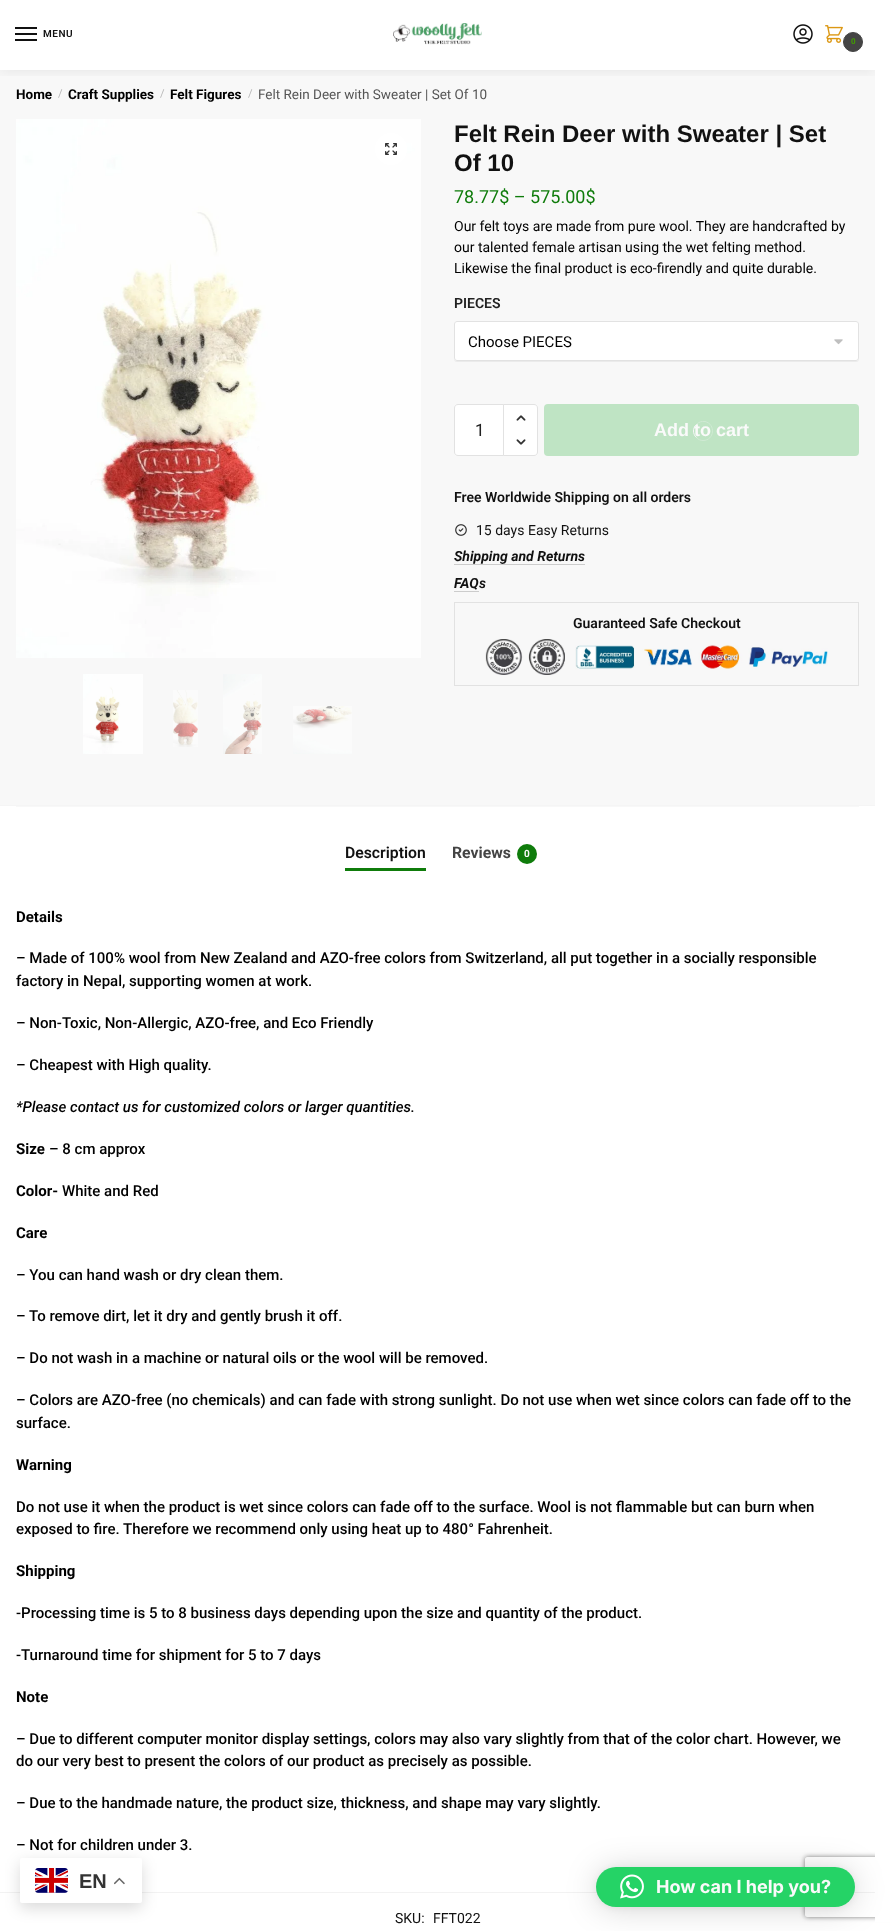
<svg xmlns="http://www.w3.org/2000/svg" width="890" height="1931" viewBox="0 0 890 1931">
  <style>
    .t1 { font: 600 10px Roboto; letter-spacing: 0.5px; fill: #111; }
    .t2 { font: bold 8px Roboto; fill: #429f00; }
    .t3 { font: bold 13.5px Roboto; fill: #000; }
    .t4 { font: 11px Roboto; fill: #b7b7b7; }
    .t5 { font: 13.5px Roboto; fill: #555; }
    .t6 { font: bold 24px Liberation Sans; fill: #111; }
    .t7 { font: 18px Roboto; fill: #0f7c0b; }
    .t8 { font: 14px Roboto; fill: #000; }
    .t9 { font: 600 14px Roboto; fill: #222; }
    .t10 { font: 15px Roboto; fill: #000; }
    .t11 { font: 17px Roboto; fill: #222; }
    .t12 { font: bold 18px Liberation Sans; fill: #fafafa; }
    .t13 { font: 600 14px Roboto; fill: #111; }
    .t14 { font: 14px Roboto; fill: #111; }
    .t15 { font: italic bold 14px Roboto; fill: #111; }
    .t16 { font: italic 600 14px Roboto; fill: #111; }
    .t17 { font: 600 15.75px Roboto; fill: #111; }
    .t18 { font: bold 15.75px Roboto; fill: #444; }
    .t19 { font: bold 10px Roboto; fill: #fafafa; }
    .t20 { font: bold 15px Roboto; fill: #000; }
    .t21 { font: 500 15px Roboto; fill: #000; }
    .t22 { font: italic 500 15px Roboto; fill: #000; }
    .t23 { font: bold 20px Liberation Sans; fill: #333; }
    .t24 { font: bold 18px Inter; fill: #fafafa; }
  </style>
  <defs>
    <clipPath id="clip1"><rect x="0" y="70" width="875" height="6"/></clipPath>
    <clipPath id="clip2"><path d="M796 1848H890V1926H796ZM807 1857H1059C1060 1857 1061 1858 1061 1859V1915C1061 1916 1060 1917 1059 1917H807C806 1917 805 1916 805 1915V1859C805 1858 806 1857 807 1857Z" clip-rule="evenodd"/></clipPath>
  </defs>
  <rect width="100%" height="100%" fill="#fff"/>
  <rect x="0" y="70" width="875" height="735" fill="#f8f8f8"/>
  <g clip-path="url(#clip1)">
    <rect x="0" y="1" width="875" height="70" fill="#00000014" filter="blur(7.5px)"/>
  </g>
  <rect x="15" y="27" width="22" height="2" fill="#111"/>
  <rect x="15" y="33" width="22" height="2" fill="#111"/>
  <text x="43" y="37" class="t1">MENU</text>
  <rect x="15" y="39" width="22" height="2" fill="#111"/>
  <image x="393" y="23" width="89" height="22" href="images/1.png"/>
  <image x="793" y="24" width="20" height="20" href="images/2.png"/>
  <image x="825" y="25" width="18" height="18" href="images/3.png"/>
  <circle cx="853" cy="42" r="9.5" fill="#444" stroke="#444"/>
  <text x="851" y="44" class="t2">0</text>
  <rect x="0" y="1892" width="875" height="1" fill="#f2f2f2"/>
  <g clip-path="url(#clip2)">
    <rect x="805" y="1857" width="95" height="60" rx="2" fill="#808080" filter="blur(2.5px)"/>
  </g>
  <rect x="875" y="0" width="15" height="1922" fill="#fff"/>
  <text x="16" y="99" class="t3">Home</text>
  <text x="58" y="97" class="t4">/</text>
  <text x="68" y="99" class="t3">Craft Supplies</text>
  <text x="160" y="97" class="t4">/</text>
  <text x="170" y="99" class="t3">Felt Figures</text>
  <text x="248" y="97" class="t4">/</text>
  <text x="258" y="99" class="t5">Felt Rein Deer with Sweater | Set Of 10</text>
  <image x="16" y="119" width="405" height="539" href="images/4.png"/>
  <circle cx="391" cy="149" r="16" fill="#fff"/>
  <image x="385" y="143" width="12" height="12" href="images/5.png"/>
  <image x="83" y="674" width="60" height="80" href="images/6.png"/>
  <image x="173" y="690" width="25" height="57" href="images/7.png"/>
  <image x="223" y="674" width="39" height="80" href="images/8.png"/>
  <image x="293" y="706" width="59" height="48" href="images/9.png"/>
  <text x="454" y="142" class="t6">Felt Rein Deer with Sweater | Set</text>
  <text x="454" y="171" class="t6">Of 10</text>
  <text x="454" y="203" class="t7">78.77$ – 575.00$</text>
  <text x="454" y="231" class="t8">Our felt toys are made from pure wool. They are handcrafted by</text>
  <text x="454" y="252" class="t8">our talented female artisan using the wet felting method.</text>
  <text x="454" y="273" class="t8">Likewise the final product is eco-firendly and quite durable.</text>
  <text x="454" y="308" class="t9">PIECES</text>
  <rect x="454" y="322" width="405" height="40" rx="3" fill="#0000000d" filter="blur(0.5px)"/>
  <rect x="454" y="321" width="405" height="40" rx="3" fill="#fff"/>
  <image x="834" y="339" width="9" height="6" href="images/10.png"/>
  <rect x="454.5" y="321.5" width="404" height="39" rx="2.5" fill="none" stroke="#e2e2e2"/>
  <text x="468" y="347" class="t10">Choose PIECES</text>
  <path d="M458 404.5H503.5V455.5H458C456 455.5 454.5 454 454.5 452V408C454.5 406 456 404.5 458 404.5Z" fill="#fff" stroke="#e2e2e2"/>
  <text x="475" y="436" class="t11">1</text>
  <path d="M503.5 404.5H534C536 404.5 537.5 406 537.5 408V452C537.5 454 536 455.5 534 455.5H503.5Z" fill="#fff" stroke="#e2e2e2"/>
  <image x="516" y="415" width="10" height="6" href="images/11.png"/>
  <image x="516" y="439" width="10" height="6" href="images/12.png"/>
  <rect x="544" y="404" width="315" height="52" rx="4" fill="#bfe4c4"/>
  <text x="654" y="436" class="t12">Add to cart</text>
  <path d="M696.5 424.5C698.5 422 702 421 705 421.5C716 424 714.5 440.5 703 440.5C700.5 440.5 698 439.5 696.5 437.5" fill="none" stroke="#d0ead4"/>
  <path d="M696.5 437.5C692.5 434 692.5 428 696.5 424.5" fill="none" stroke="#f8f8f8"/>
  <text x="454" y="502" class="t13">Free Worldwide Shipping on all orders</text>
  <image x="455" y="524" width="12" height="12" href="images/13.png"/>
  <text x="476" y="535" class="t14">15 days Easy Returns</text>
  <text x="454" y="561" class="t15">Shipping and Returns</text>
  <rect x="454" y="564" width="131" height="1" fill="#ccc"/>
  <text x="454" y="588" class="t15">FAQ</text>
  <text x="479" y="588" class="t16">s</text>
  <rect x="454" y="591" width="25" height="1" fill="#ccc"/>
  <rect x="454.5" y="602.5" width="404" height="83" fill="none" stroke="#e2e2e2"/>
  <text x="573" y="628" class="t13">Guaranteed Safe Checkout</text>
  <image x="485" y="639" width="343" height="36" href="images/14.png"/>
  <rect x="0" y="805" width="875" height="1" fill="#f5f5f5"/>
  <rect x="16" y="806" width="843" height="1" fill="#f8f8f8"/>
  <text x="345" y="858" class="t17">Description</text>
  <rect x="345" y="868" width="81" height="3" fill="#0f7c0b"/>
  <text x="452" y="858" class="t18">Reviews</text>
  <circle cx="527" cy="854" r="10" fill="#0f7c0b"/>
  <text x="524" y="857" class="t19">0</text>
  <text x="16" y="922" class="t20">Details</text>
  <text x="16" y="963" class="t21">– Made of 100% wool from New Zealand and AZO-free colors from Switzerland, all put together in a socially responsible</text>
  <text x="16" y="986" class="t21">factory in Nepal, supporting women at work.</text>
  <text x="16" y="1028" class="t21">– Non-Toxic, Non-Allergic, AZO-free, and Eco Friendly</text>
  <text x="16" y="1070" class="t21">– Cheapest with High quality.</text>
  <text x="16" y="1112" class="t22">*Please contact us for customized colors or larger quantities.</text>
  <text x="16" y="1154" class="t20">Size</text>
  <text x="49" y="1154" class="t21">– 8 cm approx</text>
  <text x="16" y="1196" class="t20">Color-</text>
  <text x="62" y="1196" class="t21">White and Red</text>
  <text x="16" y="1238" class="t20">Care</text>
  <text x="16" y="1280" class="t21">– You can hand wash or dry clean them.</text>
  <text x="16" y="1321" class="t21">– To remove dirt, let it dry and gently brush it off.</text>
  <text x="16" y="1363" class="t21">– Do not wash in a machine or natural oils or the wool will be removed.</text>
  <text x="16" y="1405" class="t21">– Colors are AZO-free (no chemicals) and can fade with strong sunlight. Do not use when wet since colors can fade off to the</text>
  <text x="16" y="1428" class="t21">surface.</text>
  <text x="16" y="1470" class="t20">Warning</text>
  <text x="16" y="1512" class="t21">Do not use it when the product is wet since colors can fade off to the surface. Wool is not flammable but can burn when</text>
  <text x="16" y="1534" class="t21">exposed to fire. Therefore we recommend only using heat up to 480° Fahrenheit.</text>
  <text x="16" y="1576" class="t20">Shipping</text>
  <text x="16" y="1618" class="t21">-Processing time is 5 to 8 business days depending upon the size and quantity of the product.</text>
  <text x="16" y="1660" class="t21">-Turnaround time for shipment for 5 to 7 days</text>
  <text x="16" y="1702" class="t20">Note</text>
  <text x="16" y="1744" class="t21">– Due to different computer monitor display settings, colors may also vary slightly from that of the color chart. However, we</text>
  <text x="16" y="1766" class="t21">do our very best to present the colors of our product as precisely as possible.</text>
  <text x="16" y="1808" class="t21">– Due to the handmade nature, the product size, thickness, and shape may vary slightly.</text>
  <text x="16" y="1850" class="t21">– Not for children under 3.</text>
  <text x="395" y="1923" class="t14">SKU:</text>
  <text x="433" y="1923" class="t14">FFT022</text>
  <rect x="20" y="1863" width="122" height="45" rx="2" fill="#00000026" filter="blur(7.5px)"/>
  <rect x="20" y="1858" width="122" height="45" rx="2" fill="#fff"/>
  <image x="35" y="1868" width="33" height="25" href="images/15.png"/>
  <text x="79" y="1888" class="t23">EN</text>
  <image x="114" y="1877" width="11" height="8" href="images/16.png"/>
  <rect x="596" y="1869" width="259" height="40" rx="20" fill="#00000029" filter="blur(16px)"/>
  <rect x="596" y="1868" width="259" height="40" rx="20" fill="#0000000f" filter="blur(3px)"/>
  <rect x="596" y="1867" width="259" height="40" rx="20" fill="#25d366"/>
  <image x="620" y="1874" width="24" height="25" href="images/17.png"/>
  <text x="656" y="1893" class="t24">How can I help you?</text>
</svg>
